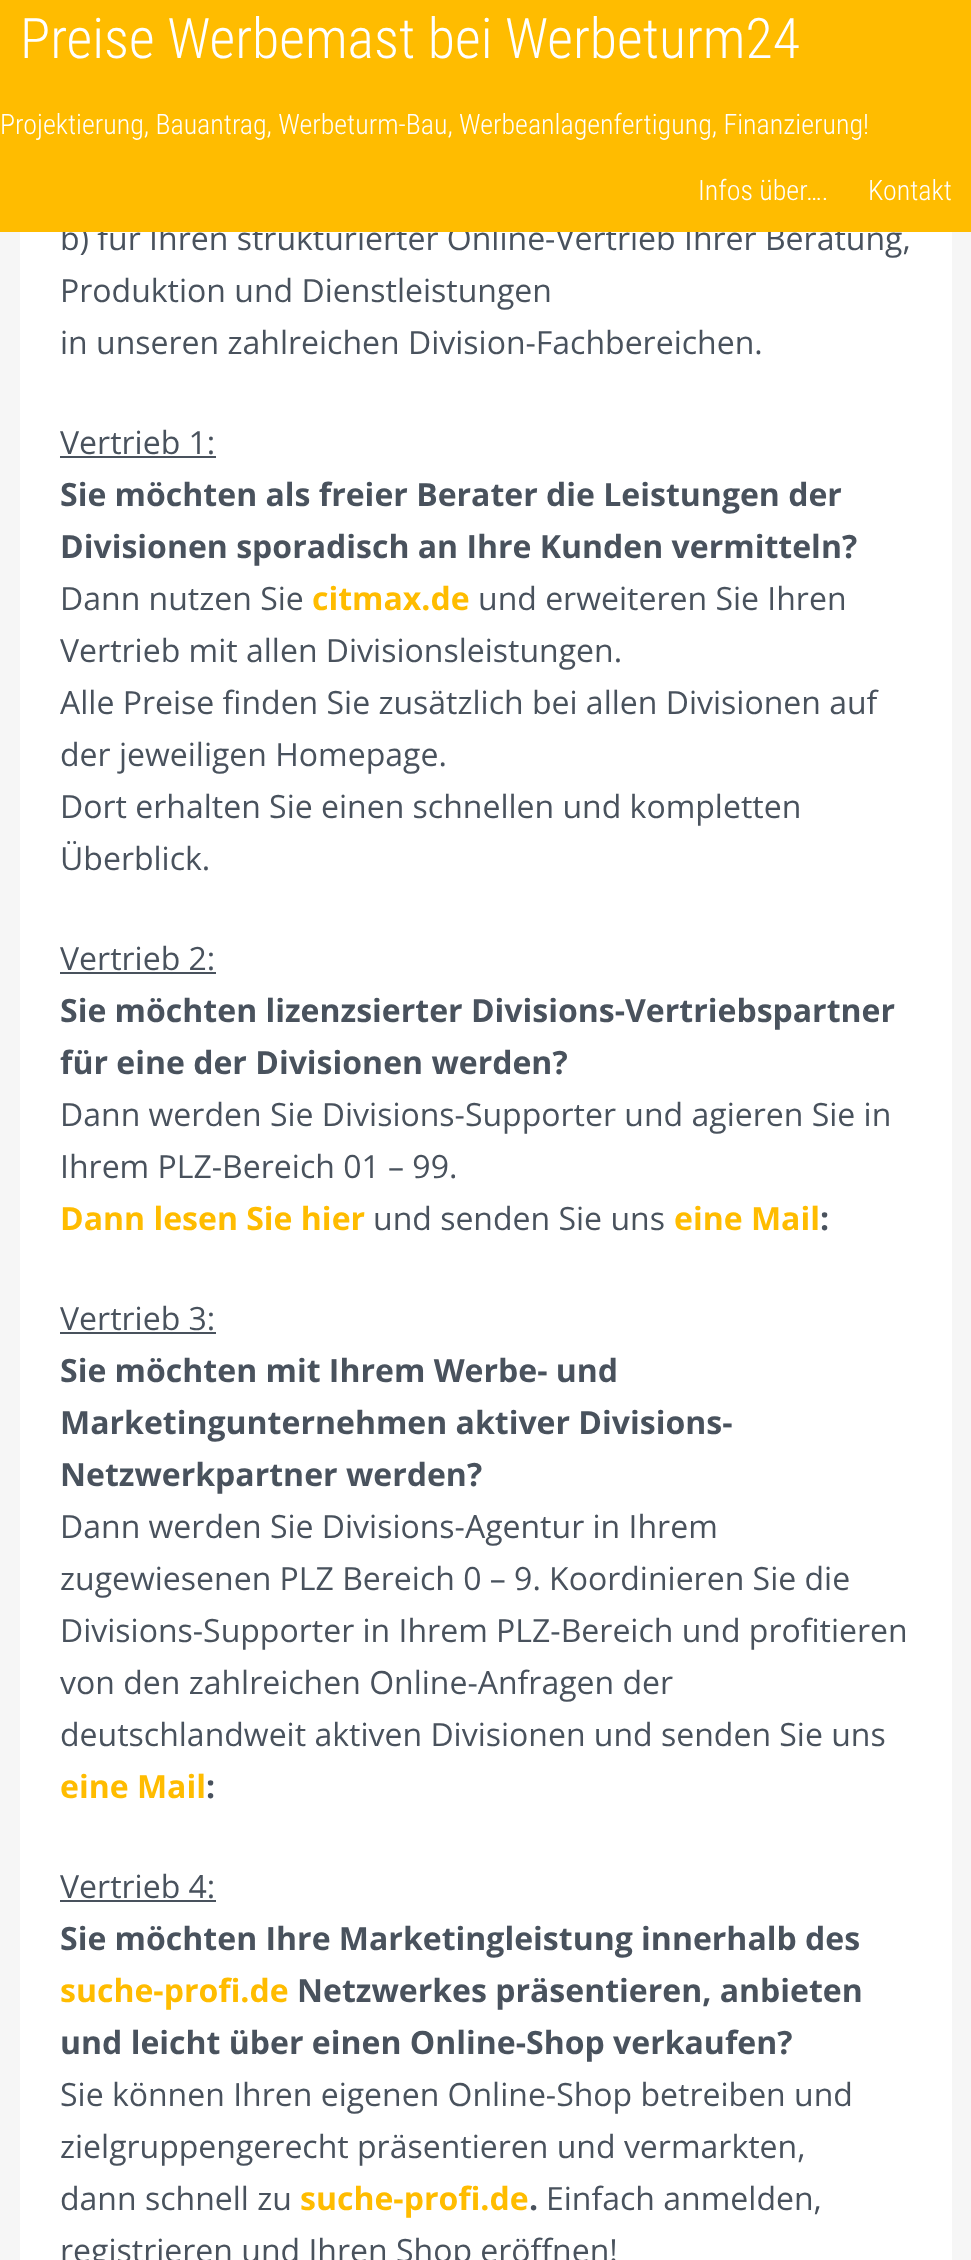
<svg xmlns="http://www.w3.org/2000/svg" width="971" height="2260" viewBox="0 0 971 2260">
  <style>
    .t1 { font: 32px Open Sans; fill: #49525d; }
    .t2 { font: 300 56px Roboto Condensed; fill: #fff; }
    .t3 { font: 300 28px Roboto Condensed; fill: #fff; }
    .t4 { font: bold 32px Open Sans; fill: #49525d; }
    .t5 { font: bold 32px Open Sans; fill: #ffbc00; }
  </style>
  <rect width="100%" height="100%" fill="#f6f6f6"/>
  <rect x="20" y="232" width="932" height="2028" fill="#fff"/>
  <text x="60" y="250" class="t1">b) für Ihren strukturierter Online-Vertrieb Ihrer Beratung,</text>
  <rect x="0" y="0" width="971" height="232" fill="#ffbc00"/>
  <text x="20" y="58" class="t2">Preise Werbemast bei Werbeturm24</text>
  <text x="0" y="134" class="t3">Projektierung, Bauantrag, Werbeturm-Bau, Werbeanlagenfertigung, Finanzierung!</text>
  <text x="698" y="200" class="t3">Infos über….</text>
  <text x="868" y="200" class="t3">Kontakt</text>
  <text x="60" y="302" class="t1">Produktion und Dienstleistungen</text>
  <text x="60" y="354" class="t1">in unseren zahlreichen Division-Fachbereichen.</text>
  <text x="60" y="454" class="t1">Vertrieb 1:</text>
  <rect x="60" y="456" width="156" height="2" fill="#49525d"/>
  <text x="60" y="506" class="t4">Sie möchten als freier Berater die Leistungen der</text>
  <text x="60" y="558" class="t4">Divisionen sporadisch an Ihre Kunden vermitteln?</text>
  <text x="60" y="610" class="t1">Dann nutzen Sie</text>
  <text x="312" y="610" class="t5">citmax.de</text>
  <text x="478" y="610" class="t1">und erweiteren Sie Ihren</text>
  <text x="60" y="662" class="t1">Vertrieb mit allen Divisionsleistungen.</text>
  <text x="60" y="714" class="t1">Alle Preise finden Sie zusätzlich bei allen Divisionen auf</text>
  <text x="60" y="766" class="t1">der jeweiligen Homepage.</text>
  <text x="60" y="818" class="t1">Dort erhalten Sie einen schnellen und kompletten</text>
  <text x="60" y="870" class="t1">Überblick.</text>
  <text x="60" y="970" class="t1">Vertrieb 2:</text>
  <rect x="60" y="972" width="156" height="2" fill="#49525d"/>
  <text x="60" y="1022" class="t4">Sie möchten lizenzsierter Divisions-Vertriebspartner</text>
  <text x="60" y="1074" class="t4">für eine der Divisionen werden?</text>
  <text x="60" y="1126" class="t1">Dann werden Sie Divisions-Supporter und agieren Sie in</text>
  <text x="60" y="1178" class="t1">Ihrem PLZ-Bereich 01 – 99.</text>
  <text x="60" y="1230" class="t5">Dann lesen Sie hier</text>
  <text x="373" y="1230" class="t1">und senden Sie uns</text>
  <text x="674" y="1230" class="t5">eine Mail</text>
  <text x="820" y="1230" class="t4">:</text>
  <text x="60" y="1330" class="t1">Vertrieb 3:</text>
  <rect x="60" y="1332" width="156" height="2" fill="#49525d"/>
  <text x="60" y="1382" class="t4">Sie möchten mit Ihrem Werbe- und</text>
  <text x="60" y="1434" class="t4">Marketingunternehmen aktiver Divisions-</text>
  <text x="60" y="1486" class="t4">Netzwerkpartner werden?</text>
  <text x="60" y="1538" class="t1">Dann werden Sie Divisions-Agentur in Ihrem</text>
  <text x="60" y="1590" class="t1">zugewiesenen PLZ Bereich 0 – 9. Koordinieren Sie die</text>
  <text x="60" y="1642" class="t1">Divisions-Supporter in Ihrem PLZ-Bereich und profitieren</text>
  <text x="60" y="1694" class="t1">von den zahlreichen Online-Anfragen der</text>
  <text x="60" y="1746" class="t1">deutschlandweit aktiven Divisionen und senden Sie uns</text>
  <text x="60" y="1798" class="t5">eine Mail</text>
  <text x="206" y="1798" class="t4">:</text>
  <text x="60" y="1898" class="t1">Vertrieb 4:</text>
  <rect x="60" y="1900" width="156" height="2" fill="#49525d"/>
  <text x="60" y="1950" class="t4">Sie möchten Ihre Marketingleistung innerhalb des</text>
  <text x="60" y="2002" class="t5">suche-profi.de</text>
  <text x="297" y="2002" class="t4">Netzwerkes präsentieren, anbieten</text>
  <text x="60" y="2054" class="t4">und leicht über einen Online-Shop verkaufen?</text>
  <text x="60" y="2106" class="t1">Sie können Ihren eigenen Online-Shop betreiben und</text>
  <text x="60" y="2158" class="t1">zielgruppengerecht präsentieren und vermarkten,</text>
  <text x="60" y="2210" class="t1">dann schnell zu</text>
  <text x="300" y="2210" class="t5">suche-profi.de</text>
  <text x="529" y="2210" class="t4">.</text>
  <text x="546" y="2210" class="t1">Einfach anmelden,</text>
  <text x="60" y="2262" class="t1">registrieren und Ihren Shop eröffnen!</text>
</svg>
